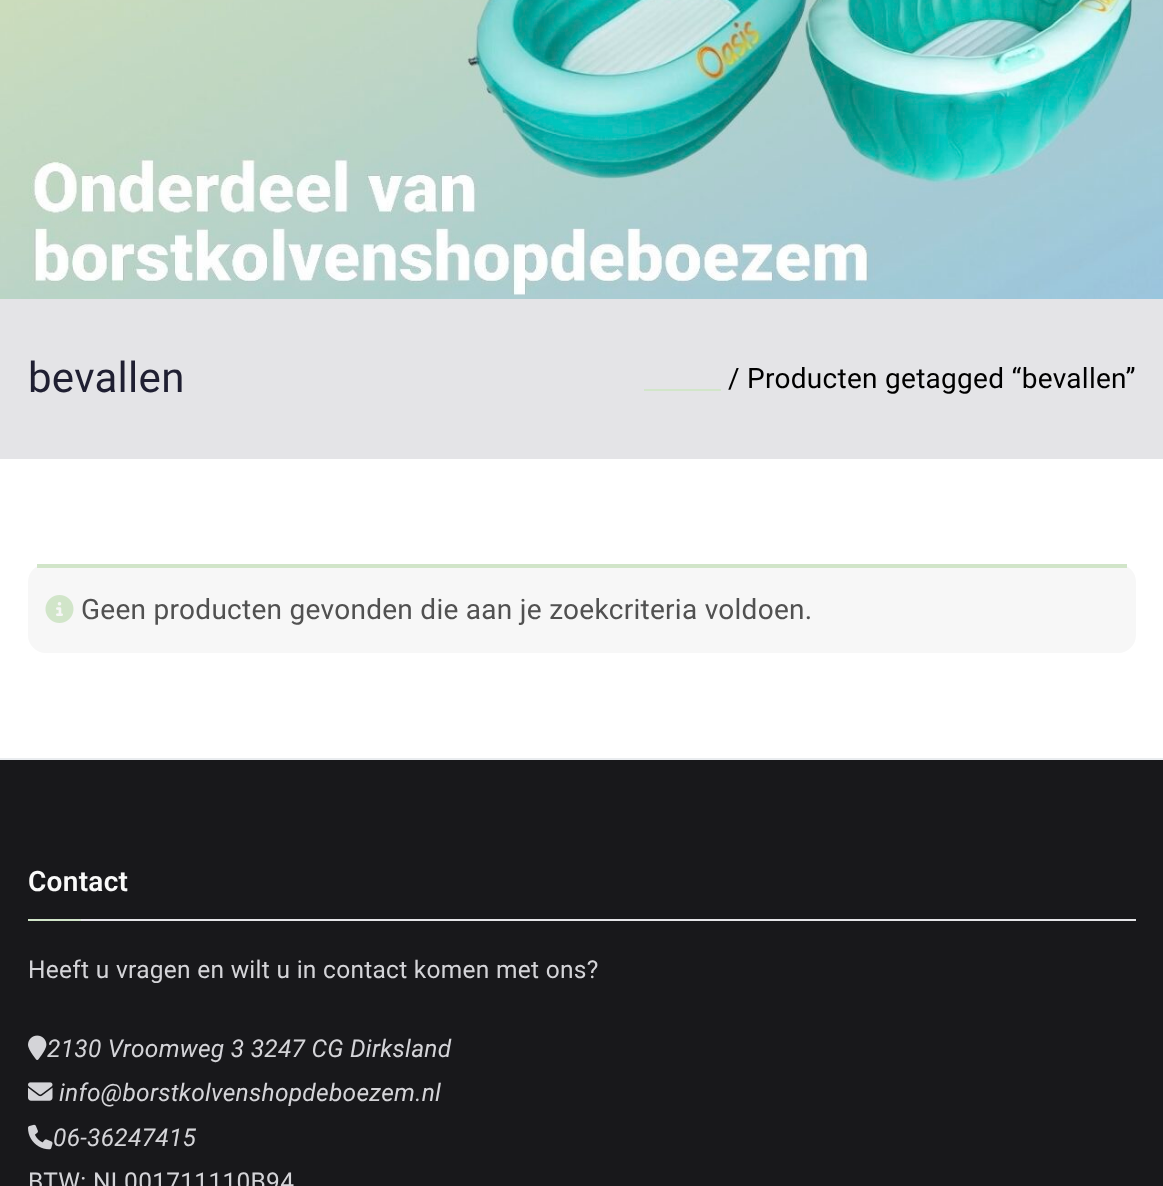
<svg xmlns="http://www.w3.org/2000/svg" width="1163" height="1186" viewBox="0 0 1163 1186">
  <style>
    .t1 { font: 42px Roboto; letter-spacing: 0.28px; fill: #1f1f32; }
    .t2 { font: 28px Roboto; letter-spacing: 0.28px; fill: #000; }
    .t3 { font: 28px Roboto; letter-spacing: 0.28px; fill: #515151; }
    .t4 { font: 600 28px Roboto; letter-spacing: 0.28px; fill: #fafafa; }
    .t5 { font: 24.5px Roboto; letter-spacing: 0.28px; fill: #d4d4d8; }
    .t6 { font: italic 24.5px Roboto; letter-spacing: 0.28px; fill: #d4d4d8; }
  </style>
  <rect width="100%" height="100%" fill="#e4e4e7"/>
  <image x="0" y="0" width="1163" height="299" href="images/1.png"/>
  <text x="28" y="392" class="t1">bevallen</text>
  <rect x="644" y="389" width="77" height="2" fill="#d1e5c9"/>
  <text x="728" y="388" class="t2">/ Producten getagged “bevallen”</text>
  <rect x="0" y="459" width="1163" height="299" fill="#fff"/>
  <rect x="28" y="564" width="1108" height="89" rx="18" fill="#f7f7f7"/>
  <rect x="37" y="564" width="1090" height="4" fill="#d1e5c9"/>
  <image x="45" y="595" width="29" height="28" href="images/2.png"/>
  <text x="81" y="619" class="t3">Geen producten gevonden die aan je zoekcriteria voldoen.</text>
  <rect x="0" y="760" width="1163" height="426" fill="#18181b"/>
  <rect x="0" y="758" width="1163" height="2" fill="#e9ecef"/>
  <rect x="81" y="919" width="1055" height="2" fill="#e4e4e7"/>
  <text x="28" y="891" class="t4">Contact</text>
  <rect x="28" y="919" width="53" height="2" fill="#d1e5c9"/>
  <text x="28" y="978" class="t5">Heeft u vragen en wilt u in contact komen met ons?</text>
  <image x="28" y="1035" width="19" height="25" href="images/3.png"/>
  <text x="47" y="1057" class="t6">2130 Vroomweg 3 3247 CG Dirksland</text>
  <image x="28" y="1082" width="25" height="19" href="images/4.png"/>
  <text x="59" y="1101" class="t6">info@borstkolvenshopdeboezem.nl</text>
  <image x="28" y="1124" width="25" height="26" href="images/5.png"/>
  <text x="53" y="1146" class="t6">06-36247415</text>
  <text x="28" y="1190" class="t5">BTW: NL001711110B94</text>
</svg>
